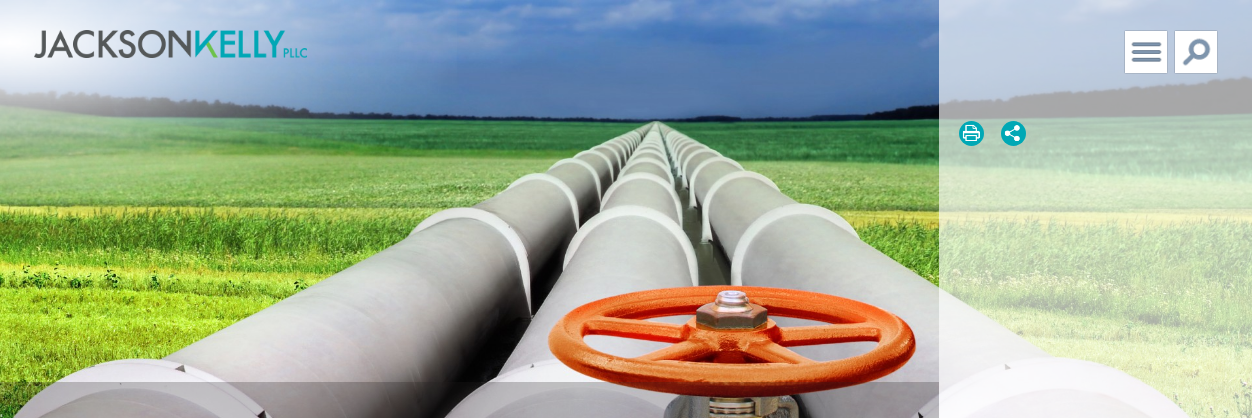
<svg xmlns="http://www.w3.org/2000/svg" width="1252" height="418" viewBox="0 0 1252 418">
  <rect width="100%" height="100%" fill="#fff"/>
  <image x="0" y="0" width="1252" height="418" href="images/1.png"/>
  <rect x="0" y="382" width="939" height="36" fill="#24202040"/>
  <rect x="939" y="0" width="313" height="418" fill="#ffffffa6"/>
  <circle cx="971.5" cy="133.5" r="12.5" fill="#00a8b5"/>
  <circle cx="1013.5" cy="133.5" r="12.5" fill="#00a8b5"/>
  <image x="962" y="124" width="18" height="17" href="images/2.png"/>
  <image x="1004" y="125" width="16" height="16" href="images/3.png"/>
  <image x="0" y="0" width="457" height="216" href="images/4.png"/>
  <image x="34" y="30" width="273" height="28" href="images/5.png"/>
  <image x="1124" y="30" width="44" height="44" href="images/6.png"/>
  <image x="1174" y="30" width="44" height="44" href="images/7.png"/>
</svg>
